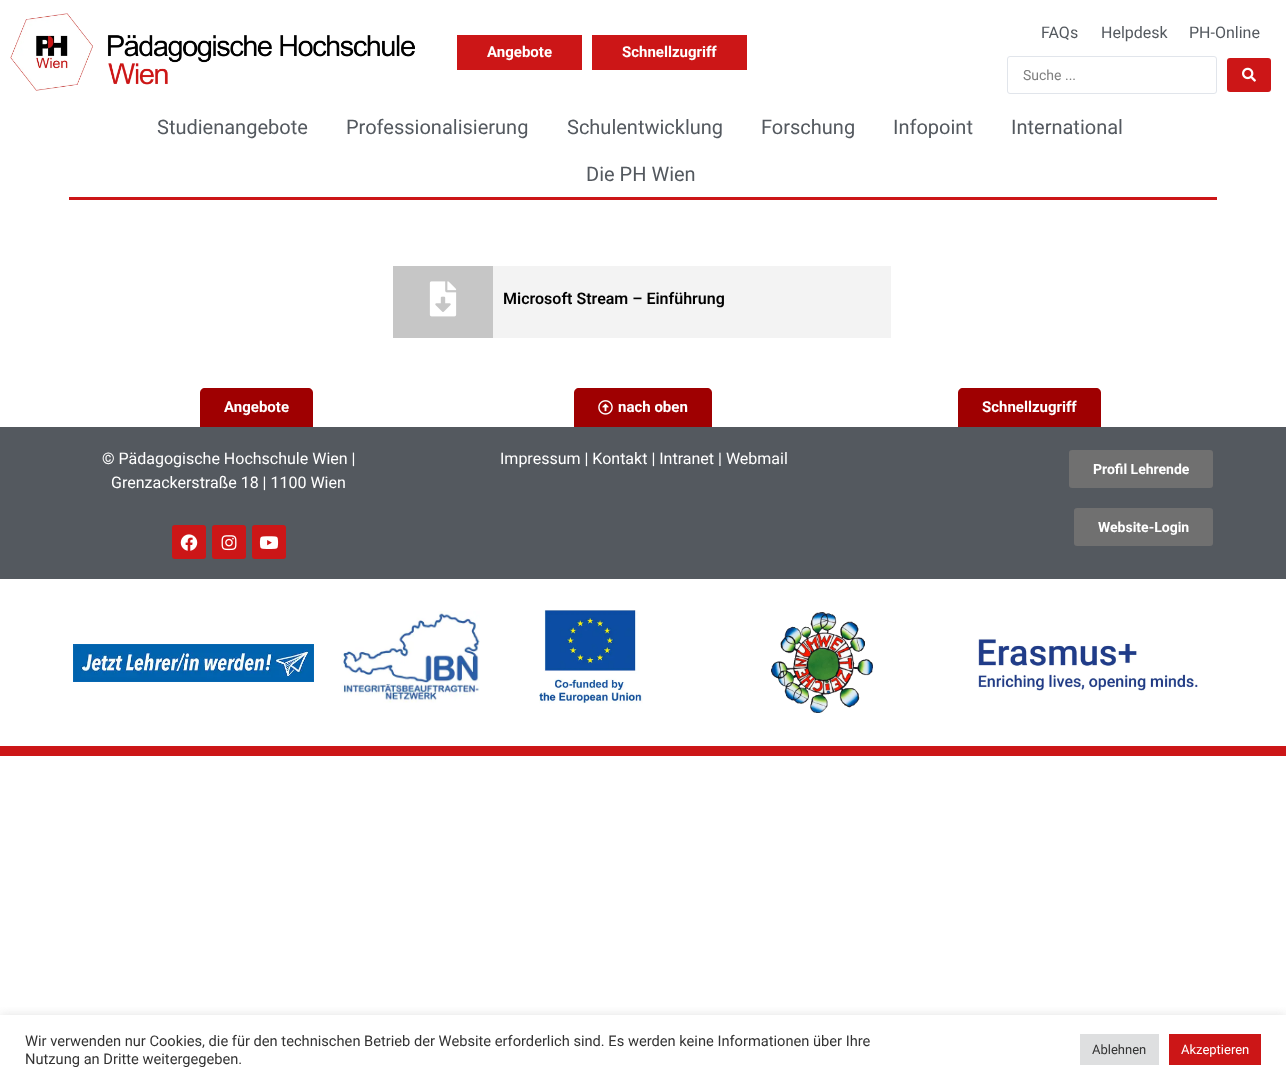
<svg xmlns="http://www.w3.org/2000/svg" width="1286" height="1084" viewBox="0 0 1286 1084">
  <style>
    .t1 { font: bold 15px Roboto; fill: #fff; }
    .t2 { font: 16px Roboto; fill: #54595f; }
    .t3 { font: 14px Roboto; fill: #808080; }
    .t4 { font: 20px Roboto; fill: #54595f; }
    .t5 { font: 600 16px Roboto; fill: #000; }
    .t6 { font: 16px Roboto; fill: #fff; }
    .t7 { font: bold 14px Roboto; fill: #fff; }
    .t8 { font: 14.67px Roboto; fill: #333; }
    .t9 { font: 13px Roboto; fill: #333; }
    .t10 { font: 13px Roboto; fill: #fff; }
  </style>
  <defs>
    <clipPath id="clip1"><rect x="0" y="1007" width="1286" height="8"/></clipPath>
  </defs>
  <rect width="100%" height="100%" fill="#fff"/>
  <image x="10" y="13" width="405" height="78" href="images/1.png"/>
  <rect x="457" y="35" width="125" height="35" fill="#cc1617"/>
  <text x="487" y="57" class="t1">Angebote</text>
  <rect x="592" y="35" width="155" height="35" fill="#cc1617"/>
  <text x="622" y="57" class="t1">Schnellzugriff</text>
  <text x="1041" y="38" class="t2">FAQs</text>
  <text x="1101" y="38" class="t2">Helpdesk</text>
  <text x="1189" y="38" class="t2">PH-Online</text>
  <rect x="1007.5" y="56.5" width="209" height="37" rx="2.5" fill="none" stroke="#e1e5eb"/>
  <text x="1023" y="80" class="t3">Suche ...</text>
  <rect x="1227" y="58" width="44" height="34" rx="3" fill="#cc1617"/>
  <image x="1242" y="67" width="14" height="15" href="images/2.png"/>
  <rect x="69" y="197" width="1148" height="3" fill="#cc1617"/>
  <text x="157" y="134" class="t4">Studienangebote</text>
  <text x="346" y="134" class="t4">Professionalisierung</text>
  <text x="567" y="134" class="t4">Schulentwicklung</text>
  <text x="761" y="134" class="t4">Forschung</text>
  <text x="893" y="134" class="t4">Infopoint</text>
  <text x="1011" y="134" class="t4">International</text>
  <text x="586" y="181" class="t4">Die PH Wien</text>
  <rect x="393" y="266" width="100" height="72" fill="#c6c6c6"/>
  <image x="429" y="281" width="28" height="36" href="images/3.png"/>
  <rect x="493" y="266" width="398" height="72" fill="#f3f3f3"/>
  <text x="503" y="304" class="t5">Microsoft Stream – Einführung</text>
  <path d="M205 388H308C311 388 313 390 313 393V427H200V393C200 390 202 388 205 388Z" fill="#9f0001"/>
  <text x="224" y="412" class="t1">Angebote</text>
  <path d="M579 388H707C710 388 712 390 712 393V427H574V393C574 390 576 388 579 388Z" fill="#9f0001"/>
  <image x="598" y="400" width="15" height="15" href="images/4.png"/>
  <text x="618" y="412" class="t1">nach oben</text>
  <path d="M963 388H1096C1099 388 1101 390 1101 393V427H958V393C958 390 960 388 963 388Z" fill="#9f0001"/>
  <text x="982" y="412" class="t1">Schnellzugriff</text>
  <rect x="0" y="427" width="1286" height="152" fill="#54595f"/>
  <text x="102" y="464" class="t6">© Pädagogische Hochschule Wien |</text>
  <text x="111" y="488" class="t6">Grenzackerstraße 18 | 1100 Wien</text>
  <rect x="172" y="525" width="34" height="34" rx="3" fill="#cc1617"/>
  <image x="180" y="534" width="18" height="17" href="images/5.png"/>
  <rect x="212" y="525" width="34" height="34" rx="3" fill="#cc1617"/>
  <image x="221" y="535" width="16" height="16" href="images/6.png"/>
  <rect x="252" y="525" width="34" height="34" rx="3" fill="#cc1617"/>
  <image x="259" y="536" width="20" height="13" href="images/7.png"/>
  <text x="500" y="464" class="t6">Impressum | Kontakt | Intranet | Webmail</text>
  <rect x="1069" y="450" width="144" height="38" rx="3" fill="#707070"/>
  <text x="1093" y="474" class="t7">Profil Lehrende</text>
  <rect x="1074" y="508" width="139" height="38" rx="3" fill="#707070"/>
  <text x="1098" y="532" class="t7">Website-Login</text>
  <image x="73" y="644" width="241" height="38" href="images/8.png"/>
  <image x="341" y="611" width="139" height="92" href="images/9.png"/>
  <image x="539" y="610" width="104" height="94" href="images/10.png"/>
  <image x="771" y="612" width="102" height="101" href="images/11.png"/>
  <image x="978" y="638" width="220" height="53" href="images/12.png"/>
  <rect x="0" y="746" width="1286" height="10" fill="#cc1617"/>
  <g clip-path="url(#clip1)">
    <rect x="0" y="1014" width="1286" height="69" fill="#acabab4d" filter="blur(5px)"/>
  </g>
  <text x="25" y="1046" class="t8">Wir verwenden nur Cookies, die für den technischen Betrieb der Website erforderlich sind. Es werden keine Informationen über Ihre</text>
  <text x="25" y="1064" class="t8">Nutzung an Dritte weitergegeben.</text>
  <rect x="1080" y="1034" width="79" height="31" fill="#dedfe0"/>
  <text x="1092" y="1054" class="t9">Ablehnen</text>
  <rect x="1169" y="1034" width="92" height="31" fill="#cc1617"/>
  <text x="1181" y="1054" class="t10">Akzeptieren</text>
</svg>
